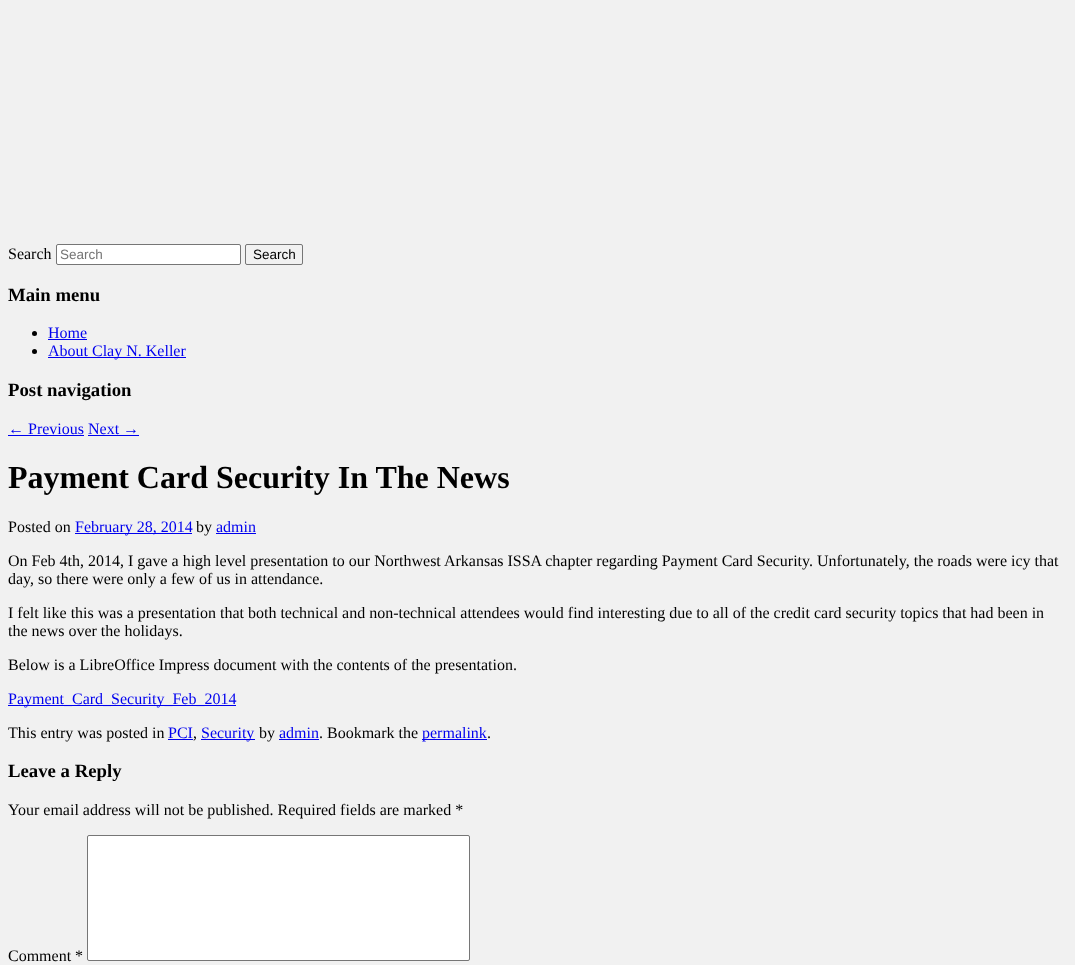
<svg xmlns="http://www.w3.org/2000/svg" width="1075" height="965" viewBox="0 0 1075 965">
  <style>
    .t1 { font: 16px Liberation Serif; fill: #000; }
    .t2 { font: 13.5px Liberation Sans; fill: #757575; }
    .t3 { font: 13.5px Liberation Sans; fill: #000; }
    .t4 { font: bold 18.75px Liberation Serif; fill: #000; }
    .t5 { font: 16px Liberation Serif; fill: #00e; }
    .t6 { font: bold 32px Liberation Serif; fill: #000; }
  </style>
  <rect width="100%" height="100%" fill="#f1f1f1"/>
  <text x="8" y="259" class="t1">Search</text>
  <rect x="56.5" y="244.5" width="184" height="20" rx="1.5" fill="#fff" stroke="#767676"/>
  <text x="60" y="259" class="t2">Search</text>
  <rect x="245.5" y="244.5" width="57" height="20" rx="1.5" fill="none" stroke="#767676"/>
  <text x="253" y="259" class="t3">Search</text>
  <text x="8" y="301" class="t4">Main menu</text>
  <circle cx="34.5" cy="333.5" r="2.5" fill="#000"/>
  <text x="48" y="338" class="t5">Home</text>
  <rect x="48" y="339" width="39" height="1" fill="#00e"/>
  <circle cx="34.5" cy="351.5" r="2.5" fill="#000"/>
  <rect x="48" y="357" width="138" height="1" fill="#00e"/>
  <text x="48" y="356" class="t5">About Clay N. Keller</text>
  <text x="8" y="396" class="t4">Post navigation</text>
  <text x="8" y="434" class="t5">← Previous Next →</text>
  <rect x="8" y="435" width="76" height="1" fill="#00e"/>
  <rect x="88" y="435" width="51" height="1" fill="#00e"/>
  <text x="8" y="488" class="t6">Payment Card Security In The News</text>
  <text x="8" y="532" class="t1">Posted on</text>
  <rect x="75" y="533" width="117" height="1" fill="#00e"/>
  <text x="75" y="532" class="t5">February 28, 2014</text>
  <text x="196" y="532" class="t1">by</text>
  <rect x="216" y="533" width="40" height="1" fill="#00e"/>
  <text x="216" y="532" class="t5">admin</text>
  <text x="8" y="566" class="t1">On Feb 4th, 2014, I gave a high level presentation to our Northwest Arkansas ISSA chapter regarding Payment Card Security. Unfortunately, the roads were icy that</text>
  <text x="8" y="584" class="t1">day, so there were only a few of us in attendance.</text>
  <text x="8" y="618" class="t1">I felt like this was a presentation that both technical and non-technical attendees would find interesting due to all of the credit card security topics that had been in</text>
  <text x="8" y="636" class="t1">the news over the holidays.</text>
  <text x="8" y="670" class="t1">Below is a LibreOffice Impress document with the contents of the presentation.</text>
  <rect x="8" y="705" width="228" height="1" fill="#00e"/>
  <text x="8" y="704" class="t5">Payment_Card_Security_Feb_2014</text>
  <text x="8" y="738" class="t1">This entry was posted in</text>
  <text x="168" y="738" class="t5">PCI</text>
  <rect x="168" y="739" width="25" height="1" fill="#00e"/>
  <text x="193" y="738" class="t1">,</text>
  <rect x="201" y="739" width="54" height="1" fill="#00e"/>
  <text x="201" y="738" class="t5">Security</text>
  <text x="259" y="738" class="t1">by</text>
  <text x="279" y="738" class="t5">admin</text>
  <rect x="279" y="739" width="40" height="1" fill="#00e"/>
  <text x="319" y="738" class="t1">. Bookmark the</text>
  <rect x="422" y="739" width="65" height="1" fill="#00e"/>
  <text x="422" y="738" class="t5">permalink</text>
  <text x="487" y="738" class="t1">.</text>
  <text x="8" y="777" class="t4">Leave a Reply</text>
  <text x="8" y="815" class="t1">Your email address will not be published. Required fields are marked *</text>
  <text x="8" y="961" class="t1">Comment *</text>
  <rect x="87.5" y="835.5" width="382" height="125" rx="1.5" fill="#fff" stroke="#767676"/>
</svg>
